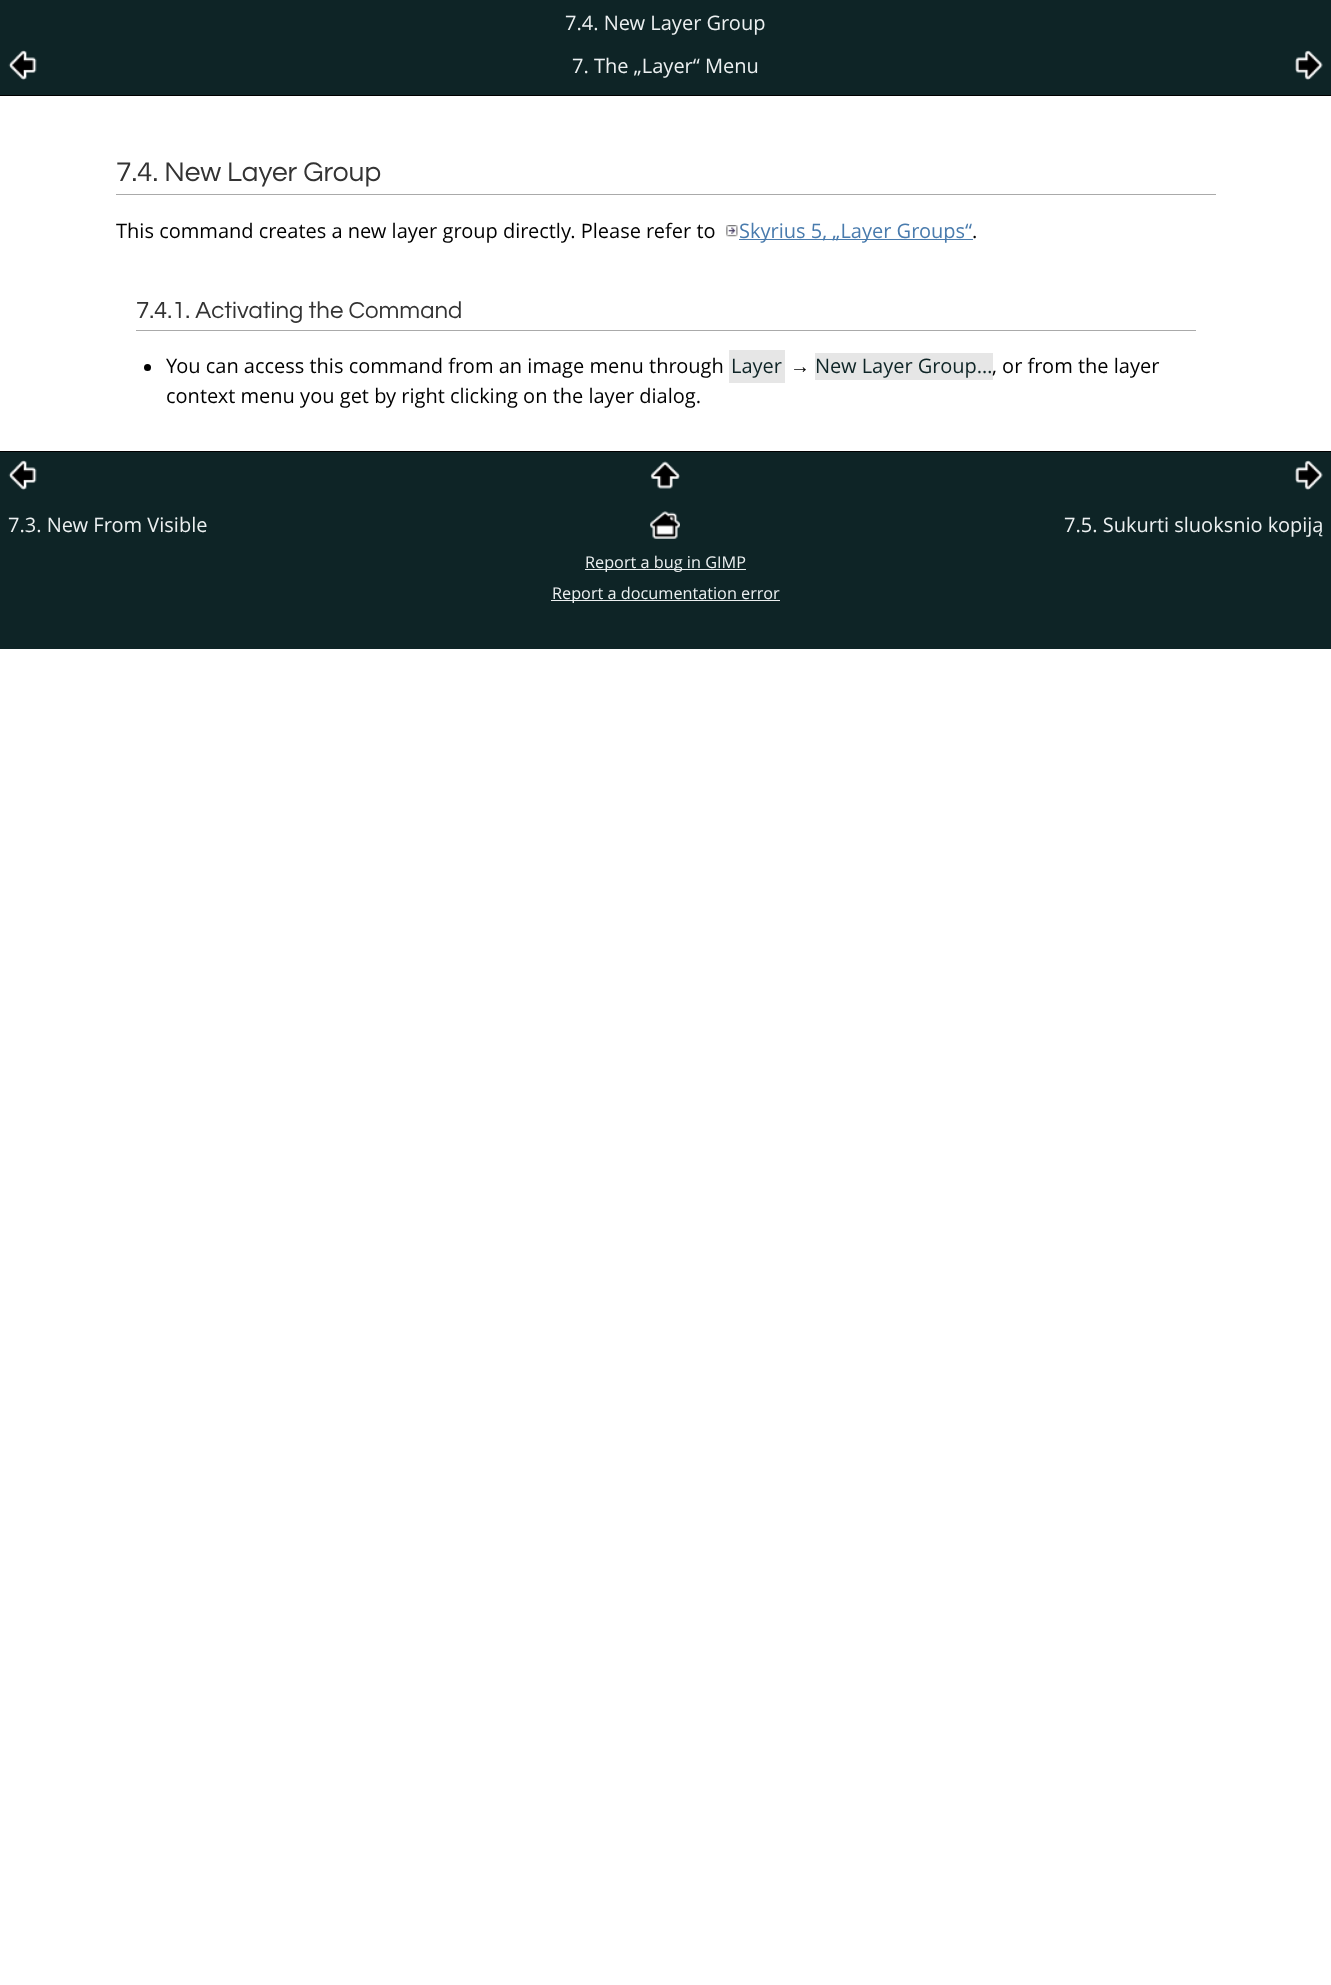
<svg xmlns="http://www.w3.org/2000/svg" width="1331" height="1985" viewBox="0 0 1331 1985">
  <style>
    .t1 { font: 20px Open Sans; fill: #ecf0f1; }
    .t2 { font: 28px Questrial; fill: #333; }
    .t3 { font: 20px Open Sans; fill: #000; }
    .t4 { font: 20px Open Sans; fill: #497bad; }
    .t5 { font: 24px Questrial; fill: #333; }
    .t6 { font: 20px Open Sans; fill: #0e2426; }
    .t7 { font: 20px Liberation Sans; fill: #000; }
    .t8 { font: 16.25px Open Sans; fill: #ecf0f1; }
  </style>
  <rect width="100%" height="100%" fill="#fff"/>
  <rect x="0" y="0" width="1331" height="95" fill="#0e2426"/>
  <rect x="0" y="95" width="1331" height="1" fill="#000"/>
  <text x="565" y="30" class="t1">7.4. New Layer Group</text>
  <image x="8" y="50" width="29" height="30" href="images/1.png"/>
  <text x="572" y="73" class="t1">7. The „Layer“ Menu</text>
  <image x="1295" y="50" width="28" height="30" href="images/2.png"/>
  <rect x="116" y="194" width="1100" height="1" fill="#aaa"/>
  <text x="116" y="181" class="t2">7.4. New Layer Group</text>
  <text x="116" y="238" class="t3">This command creates a new layer group directly. Please refer to</text>
  <image x="726" y="225" width="12" height="12" href="images/3.png"/>
  <rect x="739" y="239" width="234" height="1" fill="#497bad"/>
  <text x="739" y="238" class="t4">Skyrius 5, „Layer Groups“</text>
  <text x="972" y="238" class="t3">.</text>
  <rect x="136" y="330" width="1060" height="1" fill="#aaa"/>
  <text x="136" y="318" class="t5">7.4.1. Activating the Command</text>
  <circle cx="147.5" cy="367.5" r="3.5" fill="#000"/>
  <text x="166" y="373" class="t3">You can access this command from an image menu through</text>
  <rect x="729" y="350" width="56" height="33" fill="#e6e6e6"/>
  <text x="731" y="373" class="t6">Layer</text>
  <text x="790" y="373" class="t7">→</text>
  <rect x="815" y="353" width="178" height="27" fill="#e6e6e6"/>
  <text x="815" y="373" class="t6">New Layer Group…</text>
  <text x="992" y="373" class="t3">, or from the layer</text>
  <text x="166" y="403" class="t3">context menu you get by right clicking on the layer dialog.</text>
  <rect x="0" y="452" width="1331" height="197" fill="#0e2426"/>
  <rect x="0" y="451" width="1331" height="1" fill="#000"/>
  <image x="8" y="460" width="29" height="30" href="images/1.png"/>
  <image x="650" y="461" width="30" height="28" href="images/4.png"/>
  <image x="1295" y="460" width="28" height="30" href="images/2.png"/>
  <text x="8" y="532" class="t1">7.3. New From Visible</text>
  <image x="650" y="511" width="30" height="28" href="images/5.png"/>
  <text x="1064" y="532" class="t1">7.5. Sukurti sluoksnio kopiją</text>
  <rect x="585" y="569" width="161" height="1" fill="#ecf0f1"/>
  <text x="585" y="568" class="t8">Report a bug in GIMP</text>
  <rect x="551" y="600" width="229" height="1" fill="#ecf0f1"/>
  <text x="552" y="599" class="t8">Report a documentation error</text>
</svg>
